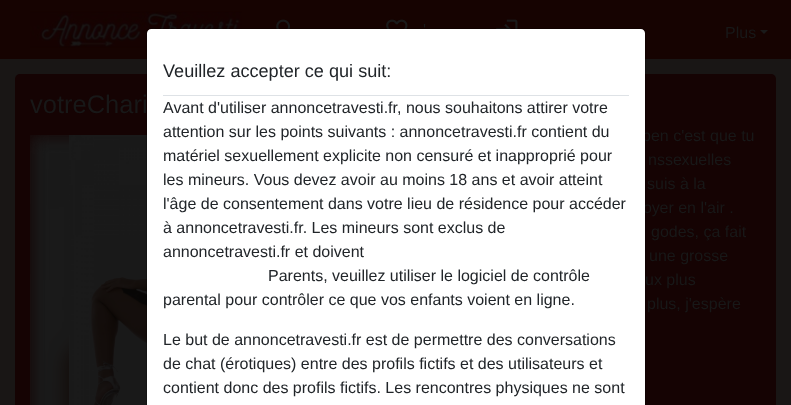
<svg xmlns="http://www.w3.org/2000/svg" width="791" height="405" viewBox="0 0 791 405">
  <style>
    .t1 { font: 16px Liberation Sans; fill: #181818; }
    .t2 { font: 25.5px Liberation Sans; fill: #181818; }
    .t3 { font: 18.1px Liberation Sans; fill: #212529; }
    .t4 { font: 16px Liberation Sans; fill: #212529; }
  </style>
  <rect width="100%" height="100%" fill="#191615"/>
  <rect x="0" y="0" width="791" height="59" fill="#160301"/>
  <image x="30" y="11" width="212" height="37" href="images/1.png"/>
  <image x="276" y="19" width="15" height="10" href="images/2.png"/>
  <image x="386" y="19" width="22" height="10" href="images/3.png"/>
  <text x="423" y="35" class="t1">'</text>
  <image x="496" y="19" width="22" height="10" href="images/4.png"/>
  <text x="725" y="38" class="t1">Plus</text>
  <path d="M760 30H768L764 34Z" fill="#1a1a1a"/>
  <rect x="15" y="74" width="308" height="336" rx="5" fill="#150303"/>
  <rect x="338" y="74" width="438" height="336" rx="5" fill="#150303"/>
  <text x="642" y="141" class="t1">bеn с'еst quе tu</text>
  <text x="643" y="213" class="t1">оуеr еn l'аіr .</text>
  <path d="M151 29H641C643 29 645 31 645 33V405H147V33C147 31 149 29 151 29Z" fill="#fff"/>
  <text x="30" y="113" class="t2">votreChari</text>
  <image x="69" y="135" width="78" height="270" href="images/6.png"/>
  <rect x="146.5" y="28.5" width="499" height="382" rx="4.5" fill="none" stroke="#00000033"/>
  <rect x="163" y="95" width="466" height="1" fill="#dee2e6"/>
  <text x="163" y="77" class="t3">Veuillez accepter ce qui suit:</text>
  <text x="163" y="113" class="t4">Avant d'utiliser annoncetravesti.fr, nous souhaitons attirer votre</text>
  <text x="163" y="137" class="t4">attention sur les points suivants : annoncetravesti.fr contient du</text>
  <text x="163" y="161" class="t4">matériel sexuellement explicite non censuré et inapproprié pour</text>
  <text x="163" y="185" class="t4">les mineurs. Vous devez avoir au moins 18 ans et avoir atteint</text>
  <text x="163" y="209" class="t4">l'âge de consentement dans votre lieu de résidence pour accéder</text>
  <text x="163" y="233" class="t4">à annoncetravesti.fr. Les mineurs sont exclus de</text>
  <text x="163" y="257" class="t4">annoncetravesti.fr et doivent</text>
  <text x="268" y="281" class="t4">Parents, veuillez utiliser le logiciel de contrôle</text>
  <text x="163" y="305" class="t4">parental pour contrôler ce que vos enfants voient en ligne.</text>
  <text x="163" y="345" class="t4">Le but de annoncetravesti.fr est de permettre des conversations</text>
  <text x="163" y="369" class="t4">de chat (érotiques) entre des profils fictifs et des utilisateurs et</text>
  <text x="163" y="393" class="t4">contient donc des profils fictifs. Les rencontres physiques ne sont</text>
  <image x="30" y="135" width="39" height="270" href="images/5.png"/>
  <text x="648" y="165" class="t1">nssехuеllеs</text>
  <text x="647" y="189" class="t1">suіs à lа</text>
  <text x="651" y="237" class="t1">gоdеs, çа fаіt</text>
  <text x="649" y="261" class="t1">unе grоssе</text>
  <text x="645" y="285" class="t1">uх рlus</text>
  <text x="647" y="309" class="t1">рlus, j'еsрèrе</text>
</svg>
